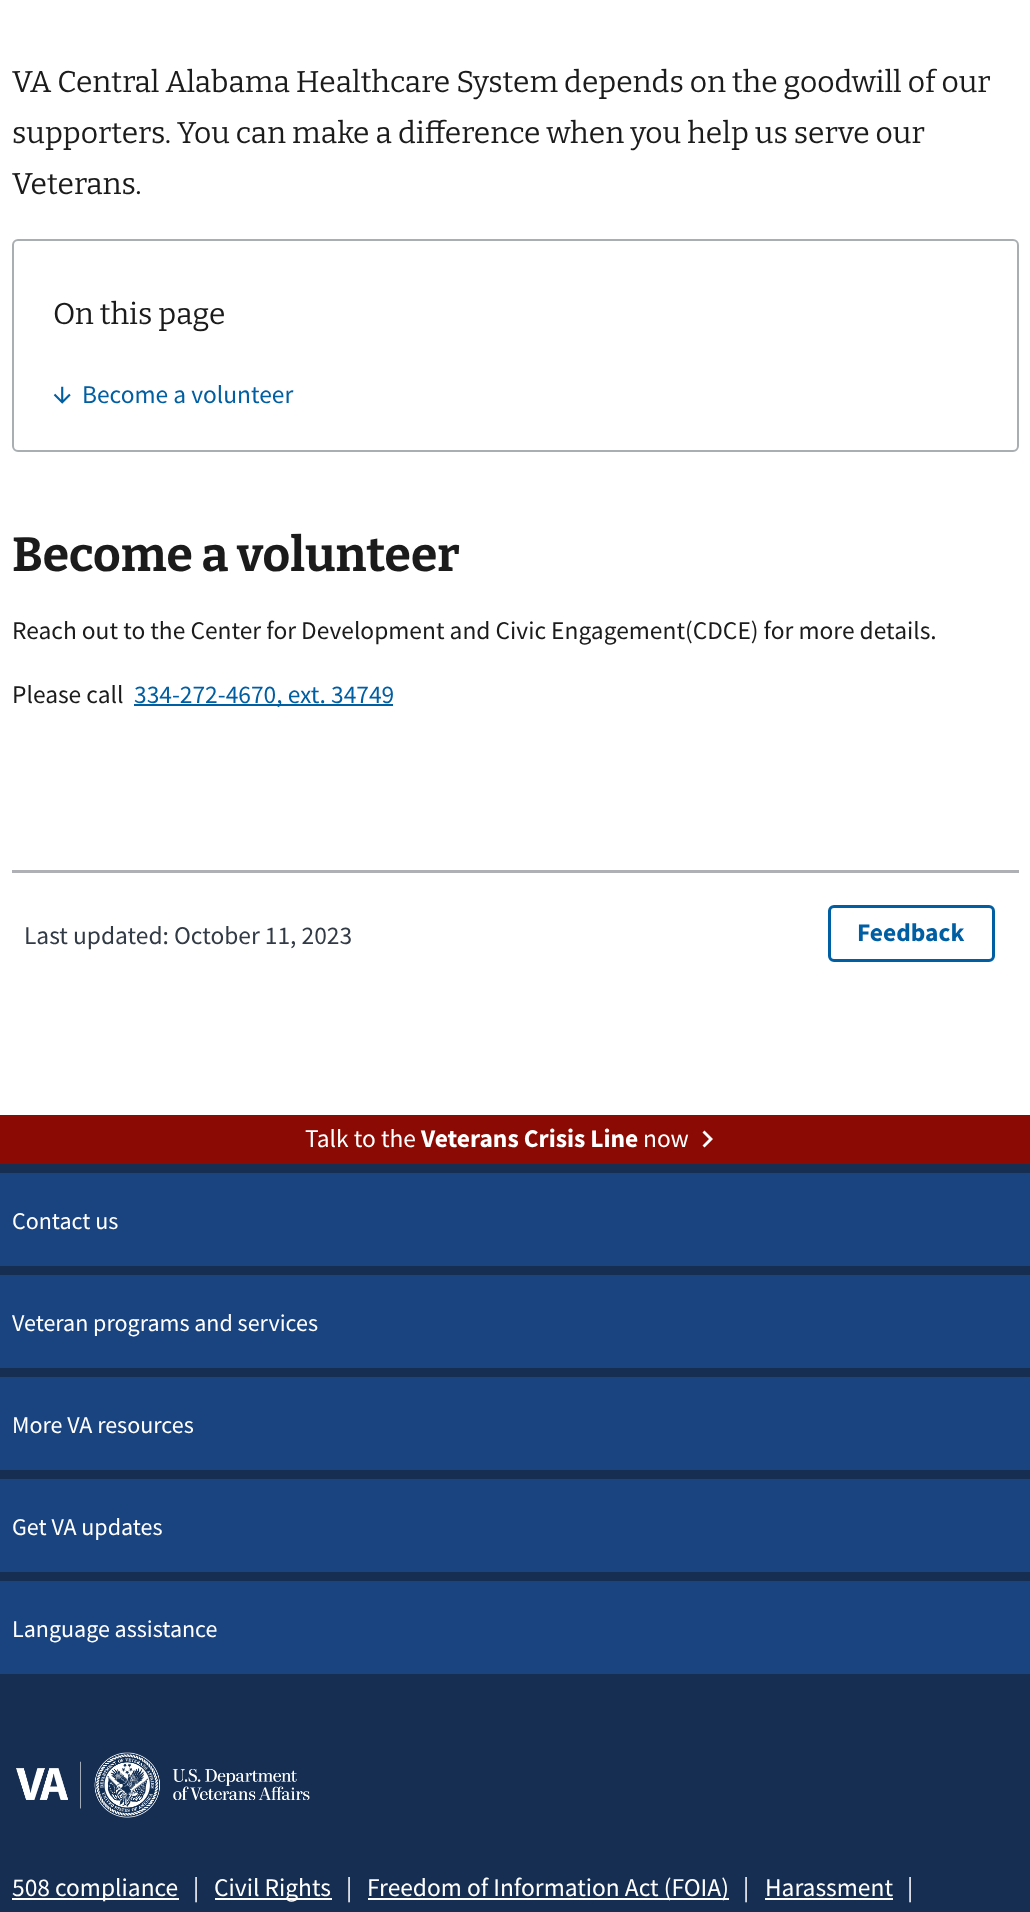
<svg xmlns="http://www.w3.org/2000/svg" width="1030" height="1912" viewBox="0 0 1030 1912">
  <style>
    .t1 { font: 30px Bitter; fill: #1b1b1b; }
    .t2 { font: 25.45px Source Sans Pro; fill: #005ea2; }
    .t3 { font: bold 48px Bitter; fill: #1b1b1b; }
    .t4 { font: 25.45px Source Sans Pro; fill: #1b1b1b; }
    .t5 { font: 25.45px Source Sans Pro; fill: #323a45; }
    .t6 { font: bold 25.45px Source Sans Pro; fill: #005ea2; }
    .t7 { font: 25.45px Source Sans Pro; fill: #fff; }
    .t8 { font: bold 25.45px Source Sans Pro; fill: #fff; }
    .t9 { font: 24px Source Sans Pro; fill: #fff; }
  </style>
  <rect width="100%" height="100%" fill="#fff"/>
  <text x="12" y="92" class="t1">VA Central Alabama Healthcare System depends on the goodwill of our</text>
  <text x="12" y="143" class="t1">supporters. You can make a difference when you help us serve our</text>
  <text x="12" y="194" class="t1">Veterans.</text>
  <rect x="13" y="240" width="1005" height="211" rx="5" fill="none" stroke="#a9aeb1" stroke-width="2"/>
  <text x="53" y="324" class="t1">On this page</text>
  <image x="53" y="386" width="18" height="18" href="images/1.png"/>
  <text x="82" y="403" class="t2">Become a volunteer</text>
  <text x="12" y="571" class="t3">Become a volunteer</text>
  <text x="12" y="639" class="t4">Reach out to the Center for Development and Civic Engagement(CDCE) for more details.</text>
  <text x="12" y="703" class="t4">Please call</text>
  <rect x="134" y="704" width="259" height="2" fill="#005ea2"/>
  <text x="134" y="703" class="t2">334-272-4670, ext. 34749</text>
  <rect x="12" y="870" width="1007" height="3" fill="#aeb0b5"/>
  <text x="24" y="944" class="t5">Last updated: October 11, 2023</text>
  <rect x="829.5" y="906.5" width="164" height="54" rx="4.5" fill="none" stroke="#005ea2" stroke-width="3"/>
  <text x="857" y="941" class="t6">Feedback</text>
  <rect x="0" y="1164" width="1030" height="748" fill="#162e51"/>
  <rect x="0" y="1115" width="1030" height="49" fill="#8b0a03"/>
  <text x="305" y="1147" class="t7">Talk to the</text>
  <text x="421" y="1147" class="t8">Veterans Crisis Line</text>
  <text x="643" y="1147" class="t7">now</text>
  <path d="M704.5 1130.5L702.5 1132.5L709 1139L702.5 1145.5L704.5 1147.5L713 1139Z" fill="#fff" fill-rule="evenodd"/>
  <rect x="0" y="1173" width="1030" height="93" fill="#1a4480"/>
  <text x="12" y="1229" class="t9">Contact us</text>
  <rect x="0" y="1275" width="1030" height="93" fill="#1a4480"/>
  <text x="12" y="1331" class="t9">Veteran programs and services</text>
  <rect x="0" y="1377" width="1030" height="93" fill="#1a4480"/>
  <text x="12" y="1433" class="t9">More VA resources</text>
  <rect x="0" y="1479" width="1030" height="93" fill="#1a4480"/>
  <text x="12" y="1535" class="t9">Get VA updates</text>
  <rect x="0" y="1581" width="1030" height="93" fill="#1a4480"/>
  <text x="12" y="1637" class="t9">Language assistance</text>
  <image x="16" y="1752" width="294" height="66" href="images/2.png"/>
  <rect x="12" y="1898" width="167" height="2" fill="#fff"/>
  <text x="12" y="1896" class="t7">508 compliance</text>
  <text x="193" y="1896" class="t7">|</text>
  <rect x="215" y="1898" width="117" height="2" fill="#fff"/>
  <text x="214" y="1896" class="t7">Civil Rights</text>
  <text x="346" y="1896" class="t7">|</text>
  <rect x="368" y="1898" width="361" height="2" fill="#fff"/>
  <text x="367" y="1896" class="t7">Freedom of Information Act (FOIA)</text>
  <text x="743" y="1896" class="t7">|</text>
  <text x="765" y="1896" class="t7">Harassment</text>
  <rect x="765" y="1898" width="128" height="2" fill="#fff"/>
  <text x="907" y="1896" class="t7">|</text>
</svg>
